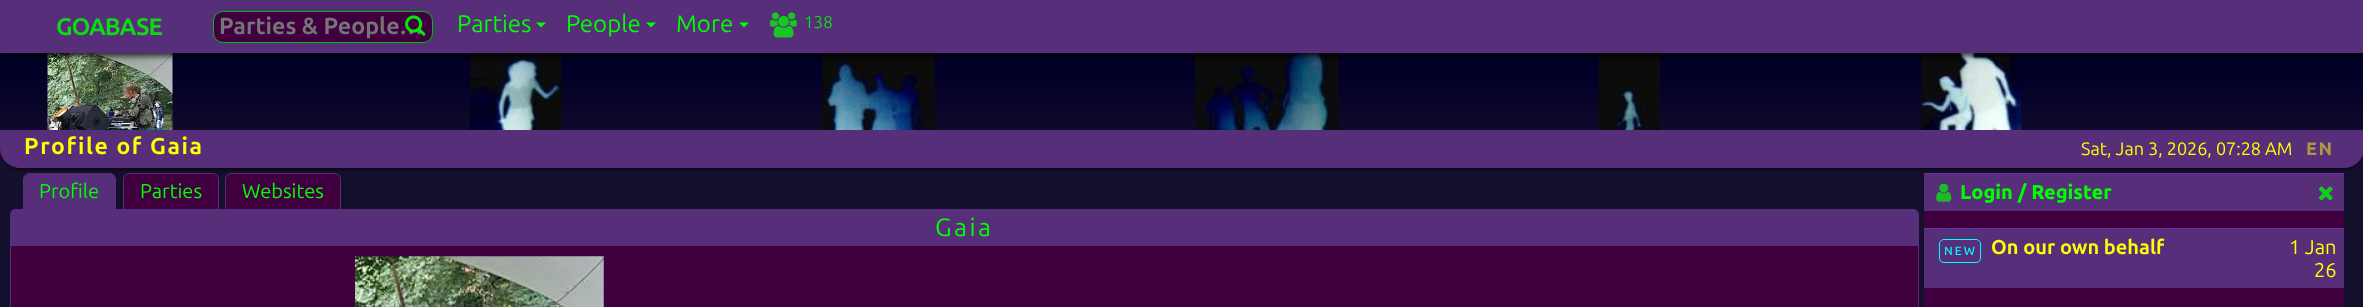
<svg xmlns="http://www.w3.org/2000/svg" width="2363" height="307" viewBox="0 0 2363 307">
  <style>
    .t1 { font: bold 24px Ubuntu; letter-spacing: -1px; fill: #0fd916; }
    .t2 { font: bold 23.25px Ubuntu; fill: #757575; }
    .t3 { font: 24px Ubuntu; fill: #0f0; }
    .t4 { font: 17px Ubuntu; fill: #0fd916; }
    .t5 { font: bold 23px Ubuntu; letter-spacing: 1.6px; fill: #ff0; }
    .t6 { font: 18px Ubuntu; fill: #ff0; }
    .t7 { font: 800 18px Ubuntu; letter-spacing: 1.6px; fill: #ab973d; }
    .t8 { font: 20px Ubuntu; fill: #0f0; }
    .t9 { font: 25px Ubuntu; letter-spacing: 2.5px; fill: #0f0; }
    .t10 { font: 800 20px Ubuntu; fill: #0f0; }
    .t11 { font: 500 12px Ubuntu; letter-spacing: 2px; fill: #0ff; }
    .t12 { font: bold 20px Ubuntu; fill: #ff0; }
    .t13 { font: 20px Ubuntu; fill: #ff0; }
  </style>
  <defs>
    <linearGradient id="g1" gradientUnits="userSpaceOnUse" x1="1182" y1="0" x2="1182" y2="155"><stop offset="0.48" stop-color="#020027"/><stop offset="1" stop-color="#150f2e"/></linearGradient>
  </defs>
  <rect width="100%" height="100%" fill="#150f2e"/>
  <rect x="0" y="53" width="2363" height="77" fill="url(#g1)"/>
  <image x="47" y="53" width="126" height="77" href="images/3.png"/>
  <image x="470" y="53" width="92" height="77" href="images/4.png"/>
  <image x="822" y="53" width="113" height="77" href="images/5.png"/>
  <image x="1195" y="53" width="144" height="77" href="images/6.png"/>
  <image x="1598" y="53" width="62" height="77" href="images/7.png"/>
  <image x="1921" y="53" width="101" height="77" href="images/8.png"/>
  <rect x="4" y="4" width="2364" height="52" fill="#000000cc" filter="blur(3px)"/>
  <rect x="0" y="0" width="2363" height="53" fill="#562e7a"/>
  <text x="56" y="35" class="t1">GOABASE</text>
  <rect x="213.5" y="11.5" width="219" height="31" rx="9.5" fill="#400040" stroke="#00bf00"/>
  <text x="219" y="34" class="t2">Parties &amp; People…</text>
  <image x="405" y="15" width="21" height="21" href="images/1.png"/>
  <text x="457" y="32" class="t3">Parties</text>
  <path d="M536 22.5H546L541 27.5Z" fill="#0f0"/>
  <text x="566" y="32" class="t3">People</text>
  <path d="M646 22.5H656L651 27.5Z" fill="#0f0"/>
  <text x="676" y="32" class="t3">More</text>
  <path d="M739 22.5H749L744 27.5Z" fill="#0f0"/>
  <image x="770" y="12" width="27" height="26" href="images/2.png"/>
  <text x="804" y="28" class="t4">138</text>
  <path d="M16 209H1913C1916.5 209 1919 211.5 1919 215V246H10V215C10 211.5 12.5 209 16 209Z" fill="#562e7a"/>
  <path d="M29 173.5H110C113 173.5 115.5 176 115.5 179V209.5H23.5V179C23.5 176 26 173.5 29 173.5Z" fill="none" stroke="#562e7a"/>
  <path d="M129 173.5H213C216 173.5 218.5 176 218.5 179V209.5H123.5V179C123.5 176 126 173.5 129 173.5Z" fill="#400040" stroke="#562e7a"/>
  <path d="M231 173.5H335C338 173.5 340.5 176 340.5 179V209.5H225.5V179C225.5 176 228 173.5 231 173.5Z" fill="#400040" stroke="#562e7a"/>
  <rect x="1924" y="173" width="420" height="1" fill="#6c30a4"/>
  <rect x="3" y="138" width="2358" height="32" rx="18" fill="#00000080" filter="blur(1px)"/>
  <path d="M0 130H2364V148C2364 159 2355 168 2344 168H20C9 168 0 159 0 148Z" fill="#562e7a"/>
  <text x="24" y="154" class="t5">Profile of Gaia</text>
  <text x="2081" y="155" class="t6">Sat, Jan 3, 2026, 07:28 AM</text>
  <text x="2306" y="155" class="t7">EN</text>
  <path d="M29 174H110C113 174 115 176 115 179V209H24V179C24 176 26 174 29 174Z" fill="#562e7a"/>
  <text x="39" y="198" class="t8">Profile</text>
  <text x="140" y="198" class="t8">Parties</text>
  <text x="242" y="198" class="t8">Websites</text>
  <text x="935" y="236" class="t9">Gaia</text>
  <rect x="11" y="246" width="1907" height="61" fill="#400040"/>
  <rect x="1918" y="246" width="1" height="61" fill="#562e7a"/>
  <rect x="10" y="246" width="1" height="61" fill="#562e7a"/>
  <image x="355" y="256" width="249" height="51" href="images/9.png"/>
  <rect x="1924" y="211" width="420" height="96" fill="#400040"/>
  <rect x="1924" y="174" width="420" height="37" fill="#562e7a"/>
  <image x="1936" y="183" width="16" height="19" href="images/10.png"/>
  <text x="1960" y="199" class="t10">Login / Register</text>
  <image x="2318" y="186" width="15" height="15" href="images/11.png"/>
  <rect x="1924" y="228" width="420" height="1" fill="#6c30a4"/>
  <rect x="1924" y="229" width="420" height="59" fill="#562e7a"/>
  <rect x="1939.5" y="239.5" width="41" height="23" rx="4.5" fill="none" stroke="#0ff"/>
  <text x="1944" y="255" class="t11">NEW</text>
  <text x="1991" y="254" class="t12">On our own behalf</text>
  <text x="2289" y="254" class="t13">1 Jan</text>
  <text x="2314" y="277" class="t13">26</text>
</svg>
